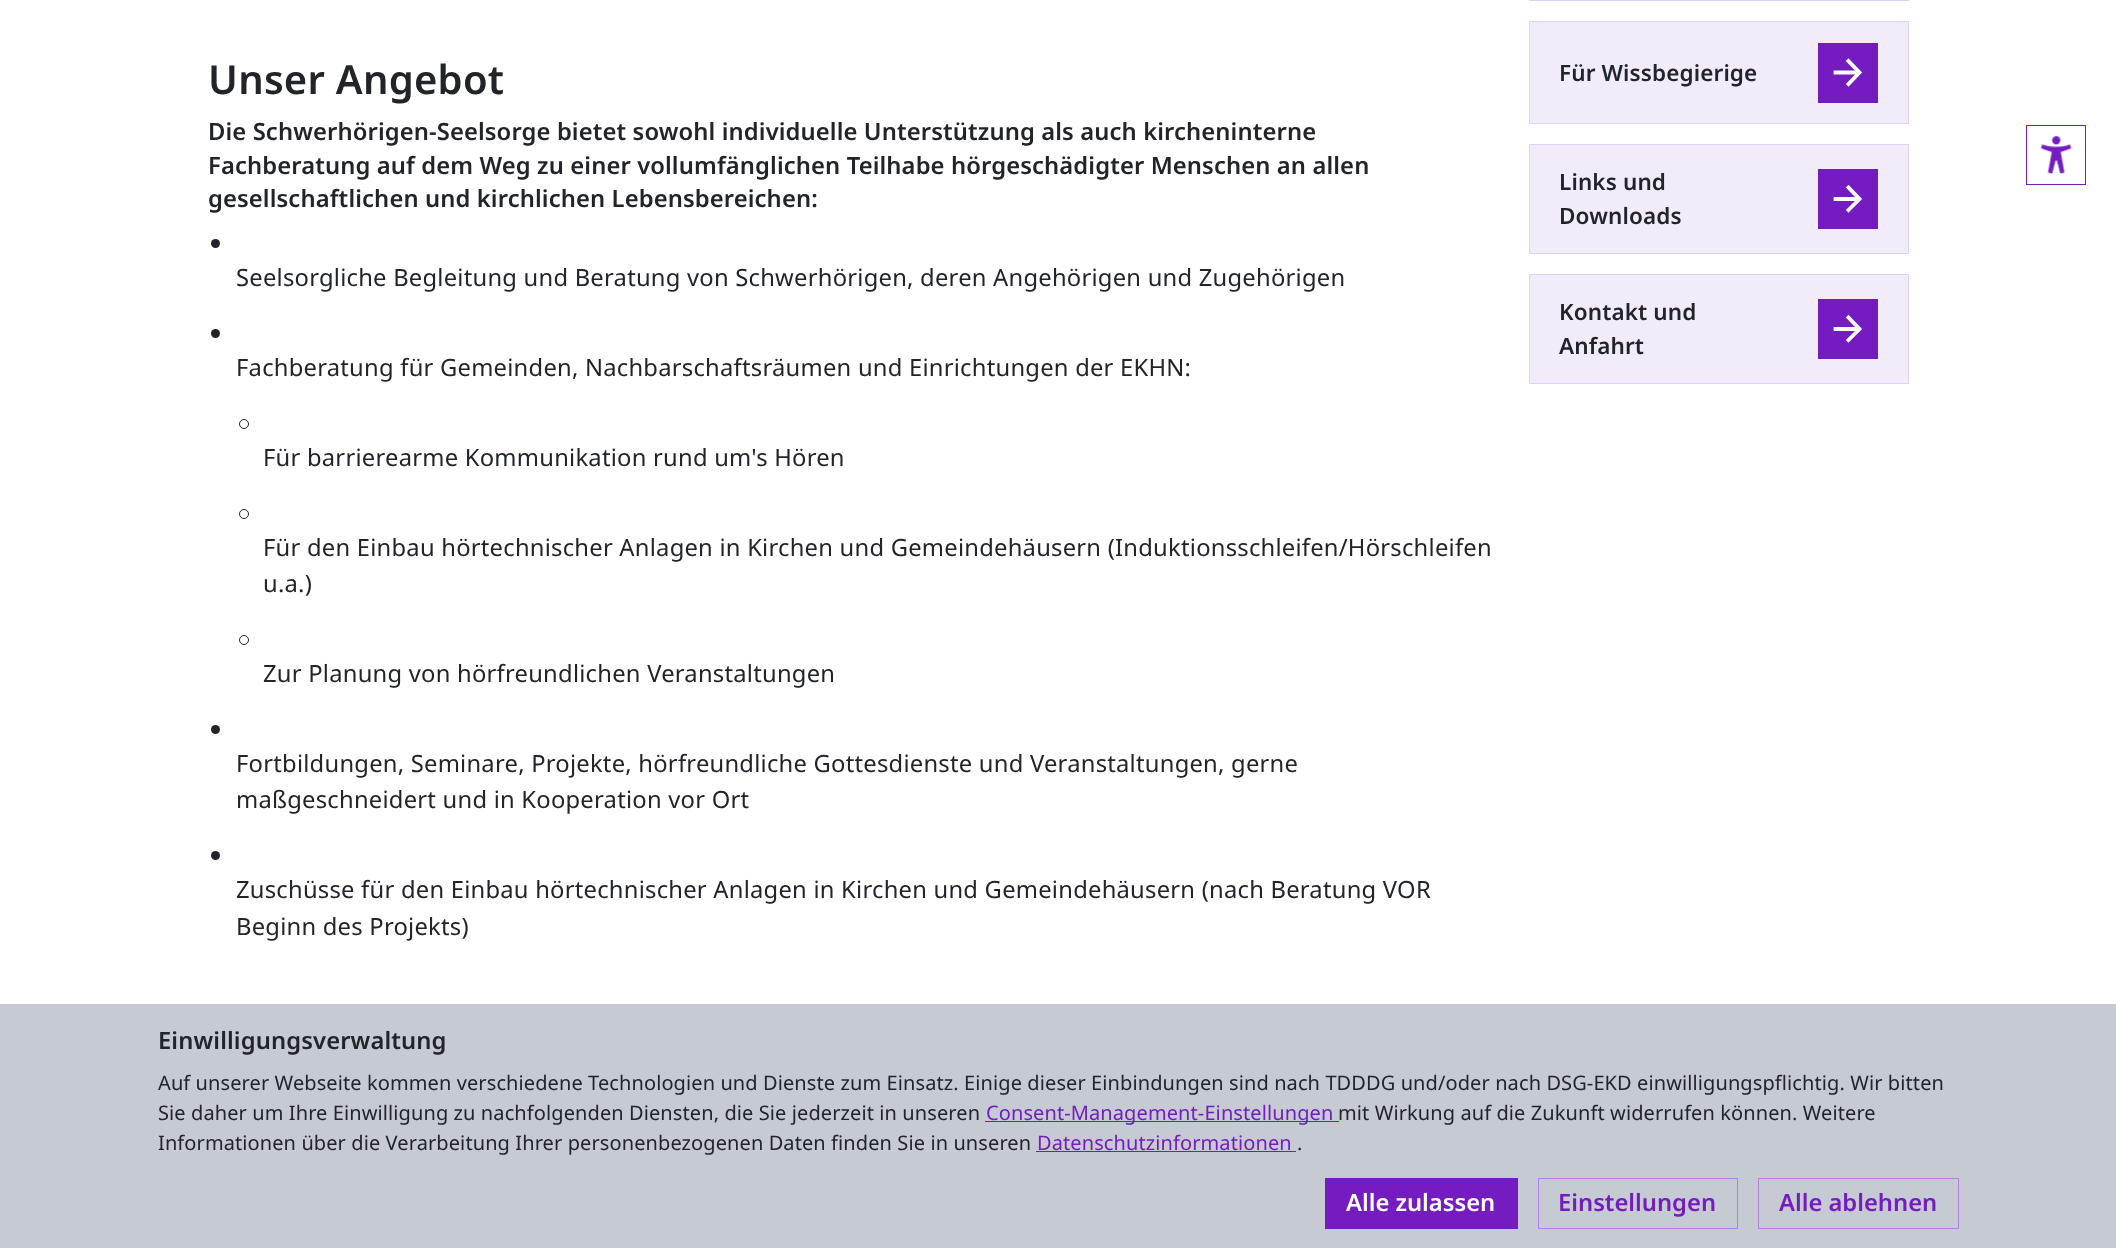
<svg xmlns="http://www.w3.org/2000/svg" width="2116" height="1248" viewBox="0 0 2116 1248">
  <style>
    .t1 { font: 600 40px Noto Sans; letter-spacing: 0.25px; fill: #212529; }
    .t2 { font: 600 23.75px Noto Sans; letter-spacing: 0.12px; fill: #212529; }
    .t3 { font: 23.75px Noto Sans; letter-spacing: 0.24px; fill: #212529; }
    .t4 { font: 600 22.5px Noto Sans; letter-spacing: 0.12px; fill: #212529; }
    .t5 { font: 20px Noto Sans; letter-spacing: 0.1px; fill: #212529; }
    .t6 { font: 20px Noto Sans; letter-spacing: 0.1px; fill: #741cc0; }
    .t7 { font: 600 23.75px Noto Sans; fill: #fff; }
    .t8 { font: 600 23.75px Noto Sans; fill: #741cc0; }
  </style>
  <rect width="100%" height="100%" fill="#fff"/>
  <text x="208" y="94" class="t1">Unser Angebot</text>
  <text x="208" y="140" class="t2">Die Schwerhörigen-Seelsorge bietet sowohl individuelle Unterstützung als auch kircheninterne</text>
  <text x="208" y="174" class="t2">Fachberatung auf dem Weg zu einer vollumfänglichen Teilhabe hörgeschädigter Menschen an allen</text>
  <text x="208" y="207" class="t2">gesellschaftlichen und kirchlichen Lebensbereichen:</text>
  <circle cx="215.5" cy="243.5" r="4.5" fill="#212529"/>
  <text x="236" y="286" class="t3">Seelsorgliche Begleitung und Beratung von Schwerhörigen, deren Angehörigen und Zugehörigen</text>
  <circle cx="215.5" cy="333.5" r="4.5" fill="#212529"/>
  <text x="236" y="376" class="t3">Fachberatung für Gemeinden, Nachbarschaftsräumen und Einrichtungen der EKHN:</text>
  <circle cx="244" cy="424" r="4.5" fill="none" stroke="#212529"/>
  <text x="263" y="466" class="t3">Für barrierearme Kommunikation rund um's Hören</text>
  <circle cx="244" cy="514" r="4.5" fill="none" stroke="#212529"/>
  <text x="263" y="556" class="t3">Für den Einbau hörtechnischer Anlagen in Kirchen und Gemeindehäusern (Induktionsschleifen/Hörschleifen</text>
  <text x="263" y="592" class="t3">u.a.)</text>
  <circle cx="244" cy="640" r="4.5" fill="none" stroke="#212529"/>
  <text x="263" y="682" class="t3">Zur Planung von hörfreundlichen Veranstaltungen</text>
  <circle cx="215.5" cy="729.5" r="4.5" fill="#212529"/>
  <text x="236" y="772" class="t3">Fortbildungen, Seminare, Projekte, hörfreundliche Gottesdienste und Veranstaltungen, gerne</text>
  <text x="236" y="808" class="t3">maßgeschneidert und in Kooperation vor Ort</text>
  <circle cx="215.5" cy="855.5" r="4.5" fill="#212529"/>
  <text x="236" y="898" class="t3">Zuschüsse für den Einbau hörtechnischer Anlagen in Kirchen und Gemeindehäusern (nach Beratung VOR</text>
  <text x="236" y="935" class="t3">Beginn des Projekts)</text>
  <rect x="1529.5" y="-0.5" width="379" height="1" fill="none" stroke="#e4cefa"/>
  <rect x="1529.5" y="21.5" width="379" height="102" fill="#f2ecfa" stroke="#e4cefa"/>
  <text x="1559" y="81" class="t4">Für Wissbegierige</text>
  <rect x="1818" y="43" width="60" height="60" fill="#741cc0"/>
  <path d="M1848.5 61L1859.5 72.5L1848.5 84M1858 72.5H1835.5" fill="none" stroke="#fff" stroke-width="3.8" stroke-linecap="square"/>
  <rect x="1529.5" y="144.5" width="379" height="109" fill="#f2ecfa" stroke="#e4cefa"/>
  <text x="1559" y="190" class="t4">Links und</text>
  <text x="1559" y="224" class="t4">Downloads</text>
  <rect x="1818" y="169" width="60" height="60" fill="#741cc0"/>
  <path d="M1848.5 187.5L1859.5 199L1848.5 210M1858 199H1835.5" fill="none" stroke="#fff" stroke-width="3.8" stroke-linecap="square"/>
  <rect x="1529.5" y="274.5" width="379" height="109" fill="#f2ecfa" stroke="#e4cefa"/>
  <text x="1559" y="320" class="t4">Kontakt und</text>
  <text x="1559" y="354" class="t4">Anfahrt</text>
  <rect x="1818" y="299" width="60" height="60" fill="#741cc0"/>
  <path d="M1848.5 317.5L1859.5 329L1848.5 340M1858 329H1835.5" fill="none" stroke="#fff" stroke-width="3.8" stroke-linecap="square"/>
  <rect x="2026.5" y="125.5" width="59" height="59" fill="none" stroke="#741cc0"/>
  <image x="2040" y="136" width="32" height="38" href="images/1.png"/>
  <rect x="0" y="1004" width="2116" height="244" fill="#c6cad3"/>
  <text x="158" y="1049" class="t2">Einwilligungsverwaltung</text>
  <text x="158" y="1090" class="t5">Auf unserer Webseite kommen verschiedene Technologien und Dienste zum Einsatz. Einige dieser Einbindungen sind nach TDDDG und/oder nach DSG-EKD einwilligungspflichtig. Wir bitten</text>
  <text x="158" y="1120" class="t5">Sie daher um Ihre Einwilligung zu nachfolgenden Diensten, die Sie jederzeit in unseren</text>
  <rect x="985" y="1121" width="354" height="1" fill="#741cc0"/>
  <text x="986" y="1120" class="t6">Consent-Management-Einstellungen</text>
  <text x="1338" y="1120" class="t5">mit Wirkung auf die Zukunft widerrufen können. Weitere</text>
  <text x="158" y="1150" class="t5">Informationen über die Verarbeitung Ihrer personenbezogenen Daten finden Sie in unseren</text>
  <text x="1037" y="1150" class="t6">Datenschutzinformationen</text>
  <rect x="1036" y="1151" width="260" height="1" fill="#741cc0"/>
  <text x="1297" y="1150" class="t5">.</text>
  <rect x="1325" y="1178" width="193" height="51" fill="#741cc0"/>
  <text x="1346" y="1211" class="t7">Alle zulassen</text>
  <rect x="1538.5" y="1178.5" width="199" height="50" fill="none" stroke="#b67def"/>
  <text x="1558" y="1211" class="t8">Einstellungen</text>
  <rect x="1758.5" y="1178.5" width="200" height="50" fill="none" stroke="#b67def"/>
  <text x="1779" y="1211" class="t8">Alle ablehnen</text>
</svg>
